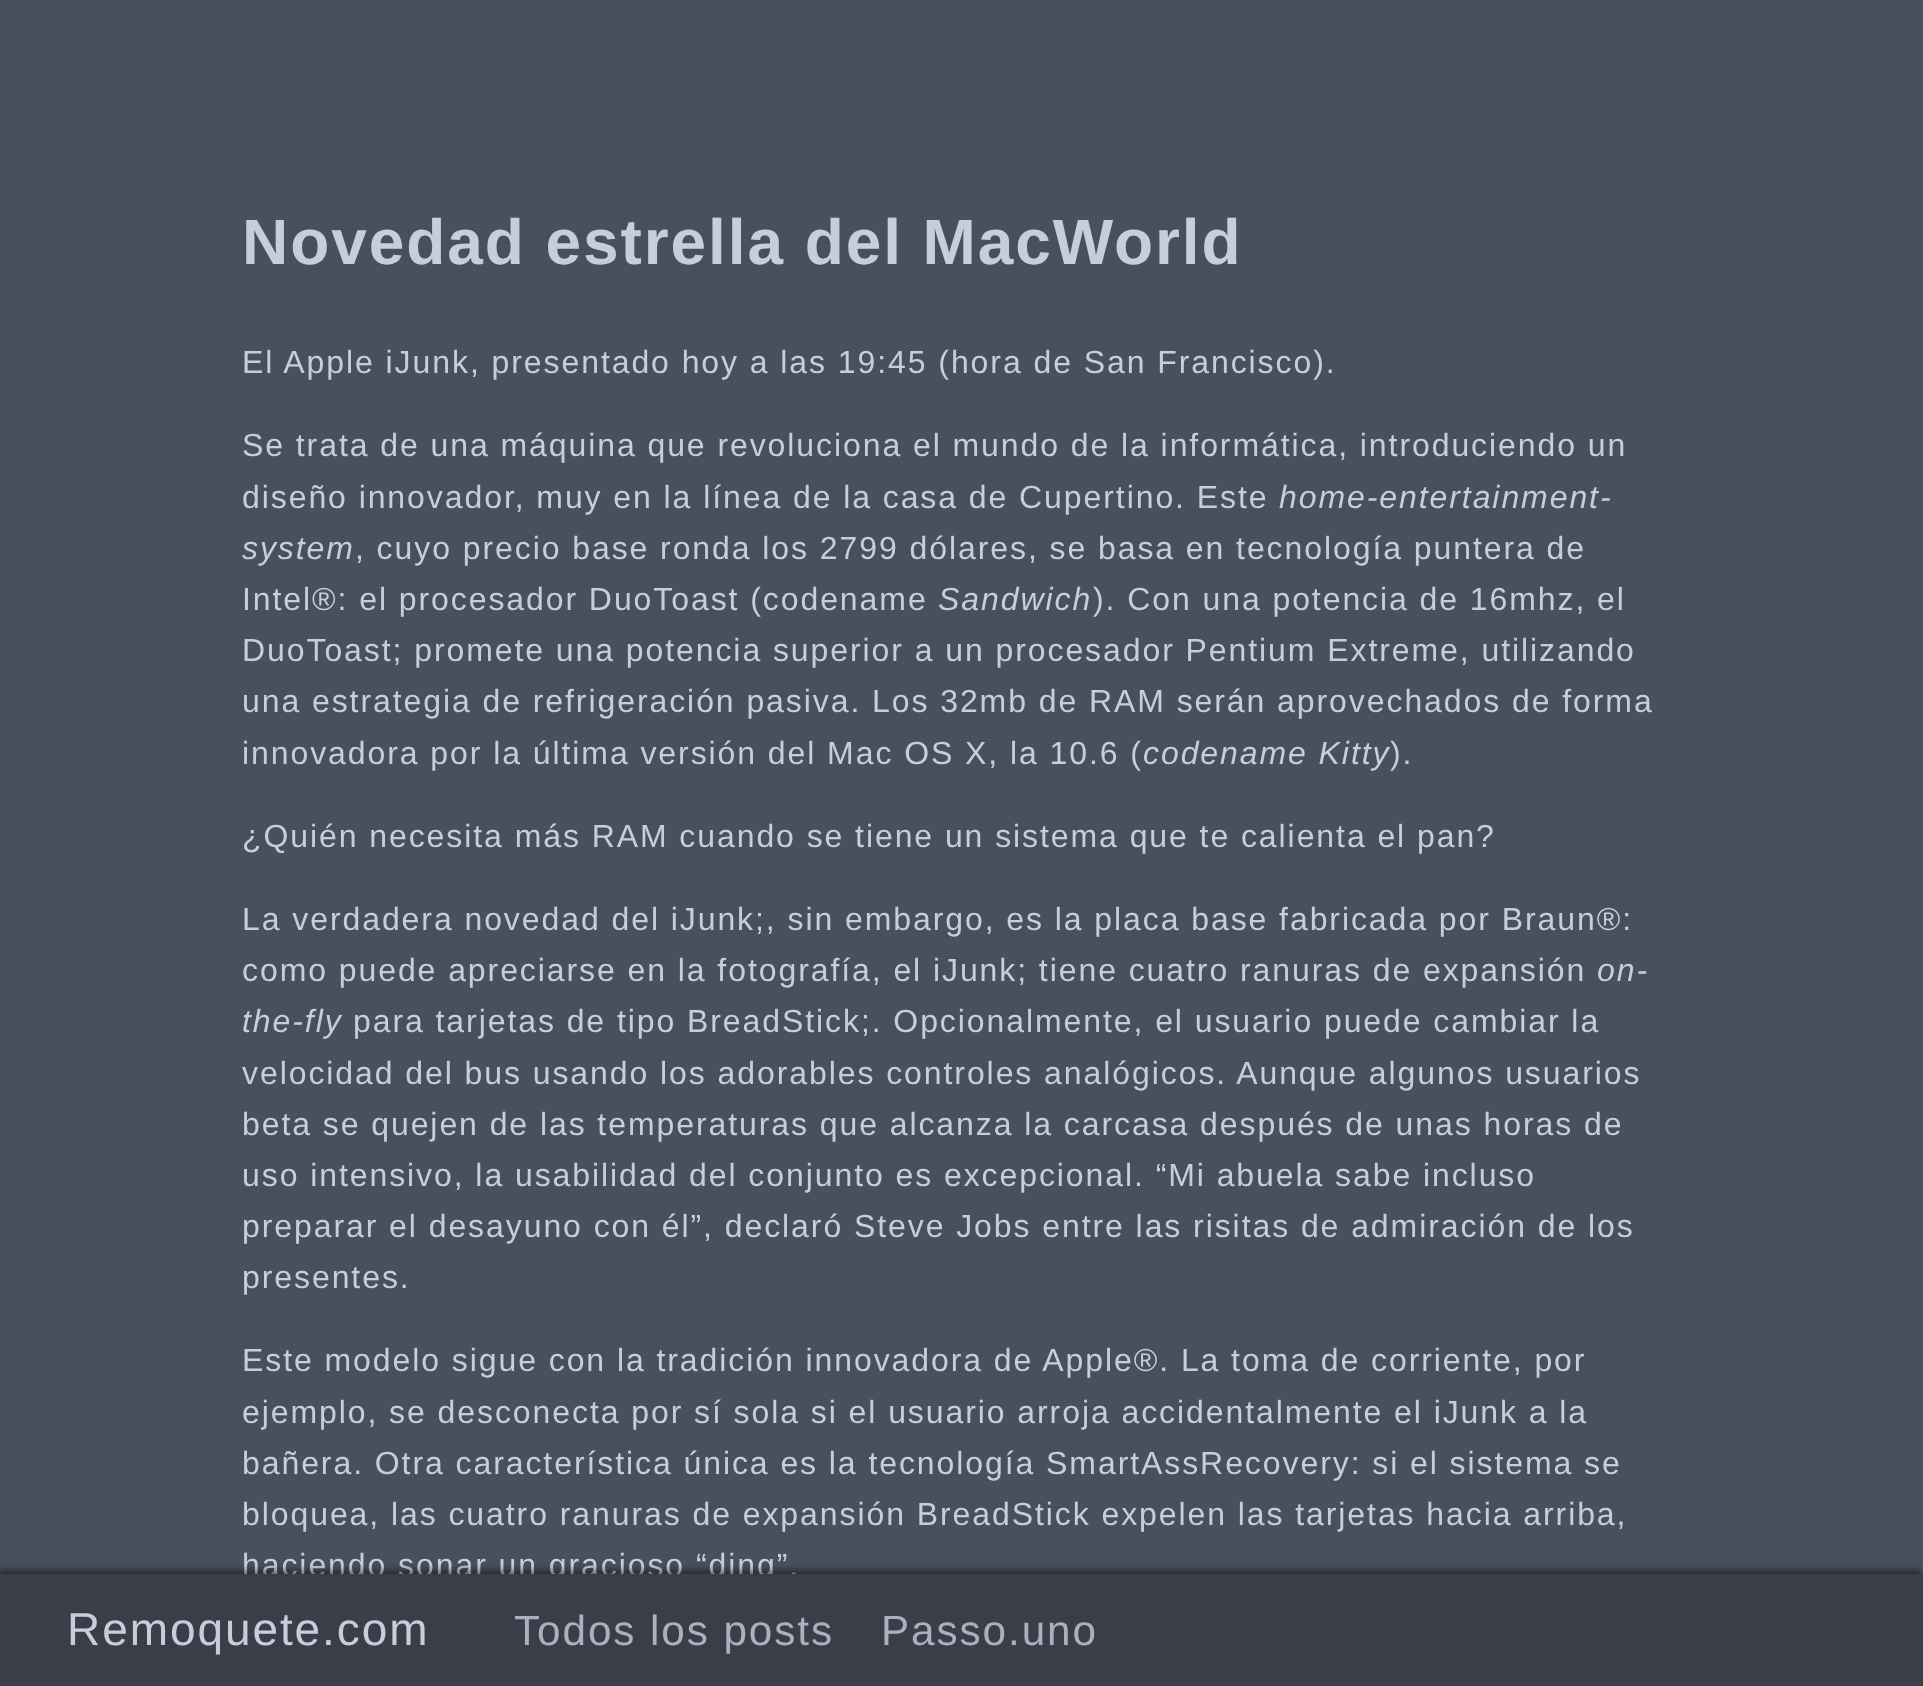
<svg xmlns="http://www.w3.org/2000/svg" width="1923" height="1686" viewBox="0 0 1923 1686">
  <style>
    .t1 { font: bold 64px Liberation Sans; letter-spacing: 1.92px; fill: #c6cddb; }
    .t2 { font: 32px Liberation Sans; letter-spacing: 1.92px; fill: #c6cddb; }
    .t3 { font: italic 32px Liberation Sans; letter-spacing: 1.92px; fill: #c6cddb; }
    .t4 { font: 46px Liberation Sans; letter-spacing: 1.92px; fill: #c6cddb; }
    .t5 { font: 42.25px Liberation Sans; letter-spacing: 1.92px; fill: #aab0be; }
  </style>
  <rect width="100%" height="100%" fill="#494f5c"/>
  <text x="242" y="264" class="t1">Novedad estrella del MacWorld</text>
  <text x="242" y="373" class="t2">El Apple iJunk, presentado hoy a las 19:45 (hora de San Francisco).</text>
  <text x="242" y="456" class="t2">Se trata de una máquina que revoluciona el mundo de la informática, introduciendo un</text>
  <text x="242" y="508" class="t2">diseño innovador, muy en la línea de la casa de Cupertino. Este</text>
  <text x="1279" y="508" class="t3">home-entertainment-</text>
  <text x="242" y="559" class="t3">system</text>
  <text x="355" y="559" class="t2">, cuyo precio base ronda los 2799 dólares, se basa en tecnología puntera de</text>
  <text x="242" y="610" class="t2">Intel®: el procesador DuoToast (codename</text>
  <text x="938" y="610" class="t3">Sandwich</text>
  <text x="1093" y="610" class="t2">). Con una potencia de 16mhz, el</text>
  <text x="242" y="661" class="t2">DuoToast; promete una potencia superior a un procesador Pentium Extreme, utilizando</text>
  <text x="242" y="712" class="t2">una estrategia de refrigeración pasiva. Los 32mb de RAM serán aprovechados de forma</text>
  <text x="242" y="764" class="t2">innovadora por la última versión del Mac OS X, la 10.6 (</text>
  <text x="1143" y="764" class="t3">codename Kitty</text>
  <text x="1390" y="764" class="t2">).</text>
  <text x="242" y="847" class="t2">¿Quién necesita más RAM cuando se tiene un sistema que te calienta el pan?</text>
  <text x="242" y="930" class="t2">La verdadera novedad del iJunk;, sin embargo, es la placa base fabricada por Braun®:</text>
  <text x="242" y="981" class="t2">como puede apreciarse en la fotografía, el iJunk; tiene cuatro ranuras de expansión</text>
  <text x="1597" y="981" class="t3">on-</text>
  <text x="242" y="1032" class="t3">the-fly</text>
  <text x="353" y="1032" class="t2">para tarjetas de tipo BreadStick;. Opcionalmente, el usuario puede cambiar la</text>
  <text x="242" y="1084" class="t2">velocidad del bus usando los adorables controles analógicos. Aunque algunos usuarios</text>
  <text x="242" y="1135" class="t2">beta se quejen de las temperaturas que alcanza la carcasa después de unas horas de</text>
  <text x="242" y="1186" class="t2">uso intensivo, la usabilidad del conjunto es excepcional. “Mi abuela sabe incluso</text>
  <text x="242" y="1237" class="t2">preparar el desayuno con él”, declaró Steve Jobs entre las risitas de admiración de los</text>
  <text x="242" y="1288" class="t2">presentes.</text>
  <text x="242" y="1371" class="t2">Este modelo sigue con la tradición innovadora de Apple®. La toma de corriente, por</text>
  <text x="242" y="1423" class="t2">ejemplo, se desconecta por sí sola si el usuario arroja accidentalmente el iJunk a la</text>
  <text x="242" y="1474" class="t2">bañera. Otra característica única es la tecnología SmartAssRecovery: si el sistema se</text>
  <text x="242" y="1525" class="t2">bloquea, las cuatro ranuras de expansión BreadStick expelen las tarjetas hacia arriba,</text>
  <text x="242" y="1576" class="t2">haciendo sonar un gracioso “ding”.</text>
  <rect x="-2" y="1570" width="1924" height="112" fill="#00000073" filter="blur(3px)"/>
  <rect x="0" y="1574" width="1923" height="112" fill="#3b3e48"/>
  <text x="67" y="1645" class="t4">Remoquete.com</text>
  <text x="514" y="1645" class="t5">Todos los posts</text>
  <text x="881" y="1645" class="t5">Passo.uno</text>
</svg>
